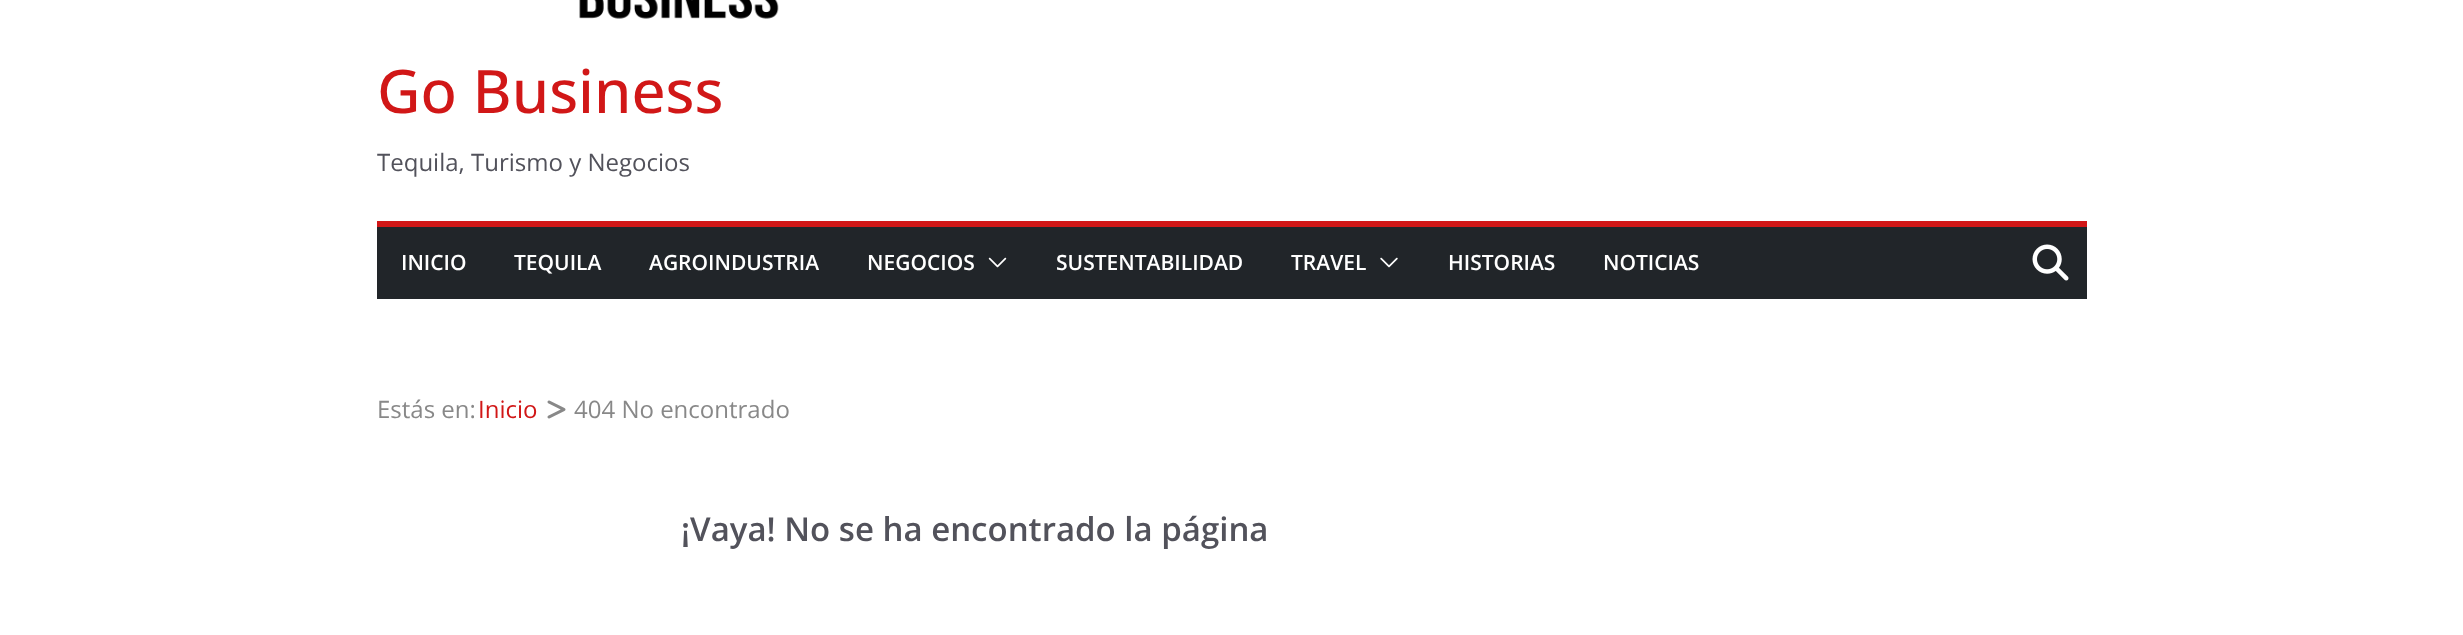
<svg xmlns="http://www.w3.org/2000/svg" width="2463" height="635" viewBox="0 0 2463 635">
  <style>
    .t1 { font: 500 60px Open Sans; fill: #d11717; }
    .t2 { font: 24px Open Sans; fill: #52525b; }
    .t3 { font: 600 21px Open Sans; fill: #fff; }
    .t4 { font: 24px Open Sans; fill: #888; }
    .t5 { font: 24px Open Sans; fill: #d11717; }
    .t6 { font: 600 33px Open Sans; fill: #52525b; }
  </style>
  <rect width="100%" height="100%" fill="#fff"/>
  <image x="579" y="0" width="200" height="19" href="images/1.png"/>
  <text x="377" y="113" class="t1">Go Business</text>
  <text x="377" y="171" class="t2">Tequila, Turismo y Negocios</text>
  <rect x="377" y="227" width="1710" height="72" fill="#212529"/>
  <rect x="377" y="221" width="1710" height="6" fill="#d11717"/>
  <text x="401" y="270" class="t3">INICIO</text>
  <text x="514" y="270" class="t3">TEQUILA</text>
  <text x="649" y="270" class="t3">AGROINDUSTRIA</text>
  <text x="867" y="270" class="t3">NEGOCIOS</text>
  <image x="988" y="257" width="19" height="11" href="images/2.png"/>
  <text x="1056" y="270" class="t3">SUSTENTABILIDAD</text>
  <text x="1291" y="270" class="t3">TRAVEL</text>
  <image x="1380" y="257" width="18" height="11" href="images/3.png"/>
  <text x="1448" y="270" class="t3">HISTORIAS</text>
  <text x="1603" y="270" class="t3">NOTICIAS</text>
  <image x="2032" y="244" width="37" height="37" href="images/4.png"/>
  <text x="377" y="418" class="t4">Estás en:</text>
  <text x="478" y="418" class="t5">Inicio</text>
  <image x="547" y="400" width="19" height="19" href="images/5.png"/>
  <text x="574" y="418" class="t4">404 No encontrado</text>
  <text x="681" y="541" class="t6">¡Vaya! No se ha encontrado la página</text>
</svg>
